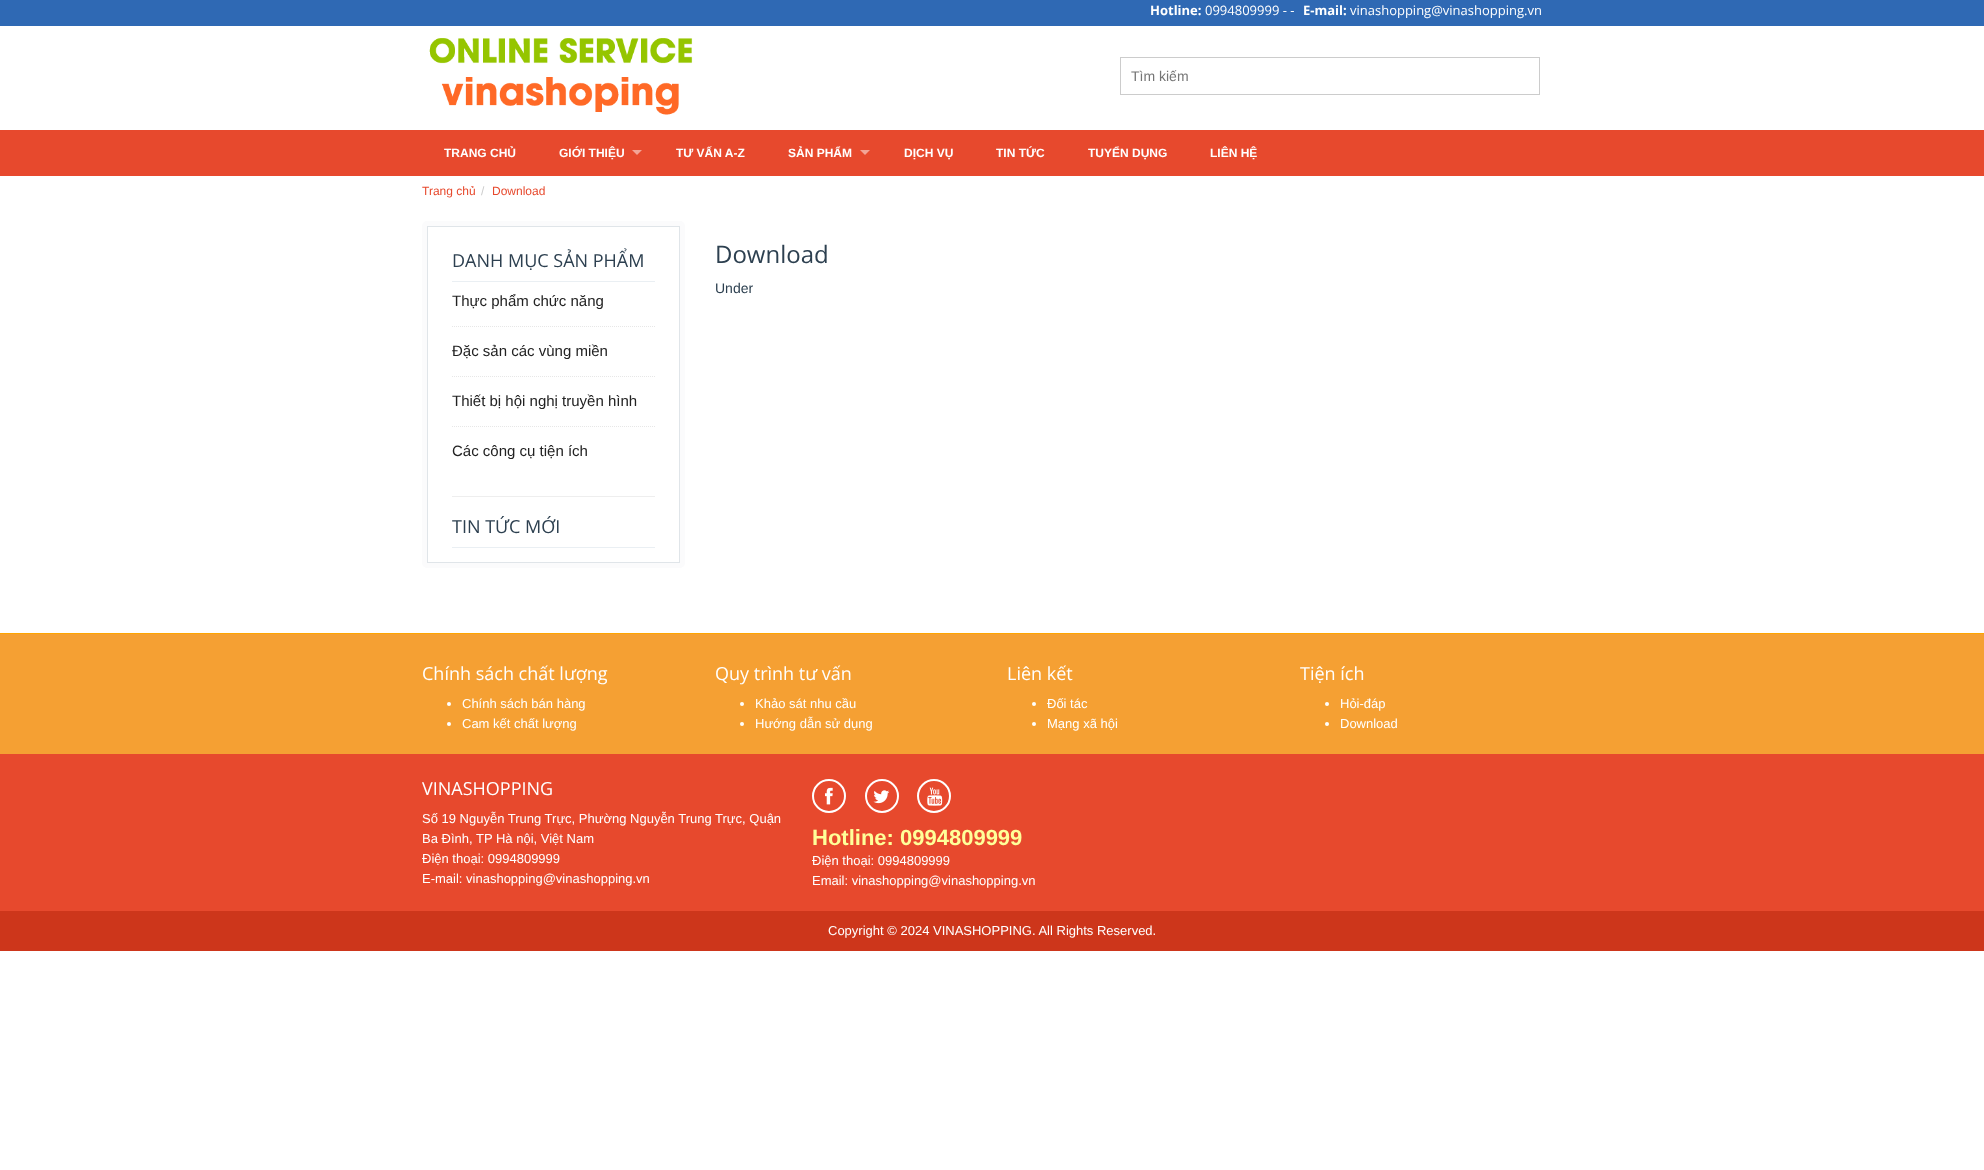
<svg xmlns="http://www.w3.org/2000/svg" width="1984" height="1170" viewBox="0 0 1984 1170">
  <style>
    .t1 { font: bold 13px Open Sans; fill: #fff; }
    .t2 { font: 13px Open Sans; fill: #fff; }
    .t3 { font: 14px Liberation Sans; fill: #757575; }
    .t4 { font: bold 12px Liberation Sans; fill: #fff; }
    .t5 { font: 12px Liberation Sans; fill: #e7492d; }
    .t6 { font: 12px Liberation Sans; fill: #ccc; }
    .t7 { font: 18px Open Sans; fill: #2d4050; }
    .t8 { font: 15px Liberation Sans; fill: #222; }
    .t9 { font: 24px Open Sans; fill: #2d4050; }
    .t10 { font: 14px Liberation Sans; fill: #2d4050; }
    .t11 { font: 18px Open Sans; fill: #fff; }
    .t12 { font: 13px Liberation Sans; fill: #fff; }
    .t13 { font: bold 22px Liberation Sans; fill: #ff9; }
  </style>
  <rect width="100%" height="100%" fill="#fff"/>
  <rect x="0" y="0" width="1984" height="26" fill="#2f69b4"/>
  <text x="1150" y="15" class="t1">Hotline:</text>
  <text x="1205" y="15" class="t2">0994809999 - -</text>
  <text x="1303" y="15" class="t1">E-mail:</text>
  <text x="1350" y="15" class="t2">vinashopping@vinashopping.vn</text>
  <image x="429" y="38" width="264" height="77" href="images/1.png"/>
  <rect x="1120.5" y="57.5" width="419" height="37" fill="none" stroke="#ccc"/>
  <text x="1131" y="81" class="t3">Tìm kiếm</text>
  <rect x="0" y="130" width="1984" height="46" fill="#e7492d"/>
  <text x="444" y="157" class="t4">TRANG CHỦ</text>
  <text x="559" y="157" class="t4">GIỚI THIỆU</text>
  <path d="M632 150H642L637 155Z" fill="#f3a496"/>
  <text x="676" y="157" class="t4">TƯ VẤN A-Z</text>
  <text x="788" y="157" class="t4">SẢN PHẨM</text>
  <path d="M860 150H870L865 155Z" fill="#f3a496"/>
  <text x="904" y="157" class="t4">DỊCH VỤ</text>
  <text x="996" y="157" class="t4">TIN TỨC</text>
  <text x="1088" y="157" class="t4">TUYỂN DỤNG</text>
  <text x="1210" y="157" class="t4">LIÊN HỆ</text>
  <text x="422" y="195" class="t5">Trang chủ</text>
  <text x="481" y="195" class="t6">/</text>
  <text x="492" y="195" class="t5">Download</text>
  <rect x="427.5" y="226.5" width="252" height="336" fill="none" stroke="#e0e5e9"/>
  <rect x="424.5" y="223.5" width="258" height="342" rx="2.5" fill="none" stroke="#fbfbfc" stroke-width="5"/>
  <rect x="452" y="281" width="203" height="1" fill="#eaeff3"/>
  <text x="452" y="267" class="t7">DANH MỤC SẢN PHẨM</text>
  <path d="M452 326.5H655" fill="none" stroke="#e7e7e7" stroke-dasharray="1 1"/>
  <text x="452" y="306" class="t8">Thực phẩm chức năng</text>
  <path d="M452 376.5H655" fill="none" stroke="#e7e7e7" stroke-dasharray="1 1"/>
  <text x="452" y="356" class="t8">Đặc sản các vùng miền</text>
  <path d="M452 426.5H655" fill="none" stroke="#e7e7e7" stroke-dasharray="1 1"/>
  <text x="452" y="406" class="t8">Thiết bị hội nghị truyền hình</text>
  <text x="452" y="456" class="t8">Các công cụ tiện ích</text>
  <rect x="452" y="496" width="203" height="1" fill="#eee"/>
  <rect x="452" y="547" width="203" height="1" fill="#eaeff3"/>
  <text x="452" y="533" class="t7">TIN TỨC MỚI</text>
  <text x="715" y="263" class="t9">Download</text>
  <text x="715" y="293" class="t10">Under</text>
  <rect x="0" y="754" width="1984" height="157" fill="#e7492d"/>
  <rect x="0" y="634" width="1984" height="120" fill="#f5a033"/>
  <rect x="0" y="633" width="1984" height="1" fill="#ffa500"/>
  <text x="422" y="680" class="t11">Chính sách chất lượng</text>
  <circle cx="449" cy="704" r="2" fill="#fff"/>
  <text x="462" y="708" class="t12">Chính sách bán hàng</text>
  <circle cx="449" cy="724" r="2" fill="#fff"/>
  <text x="462" y="728" class="t12">Cam kết chất lượng</text>
  <text x="715" y="680" class="t11">Quy trình tư vấn</text>
  <circle cx="742" cy="704" r="2" fill="#fff"/>
  <text x="755" y="708" class="t12">Khảo sát nhu cầu</text>
  <circle cx="742" cy="724" r="2" fill="#fff"/>
  <text x="755" y="728" class="t12">Hướng dẫn sử dụng</text>
  <text x="1007" y="680" class="t11">Liên kết</text>
  <circle cx="1034" cy="704" r="2" fill="#fff"/>
  <text x="1047" y="708" class="t12">Đối tác</text>
  <circle cx="1034" cy="724" r="2" fill="#fff"/>
  <text x="1047" y="728" class="t12">Mạng xã hội</text>
  <text x="1300" y="680" class="t11">Tiện ích</text>
  <circle cx="1327" cy="704" r="2" fill="#fff"/>
  <text x="1340" y="708" class="t12">Hỏi-đáp</text>
  <circle cx="1327" cy="724" r="2" fill="#fff"/>
  <text x="1340" y="728" class="t12">Download</text>
  <text x="422" y="795" class="t11">VINASHOPPING</text>
  <text x="422" y="823" class="t12">Số 19 Nguyễn Trung Trực, Phường Nguyễn Trung Trực, Quận</text>
  <text x="422" y="843" class="t12">Ba Đình, TP Hà nội, Việt Nam</text>
  <text x="422" y="863" class="t12">Điện thoại: 0994809999</text>
  <text x="422" y="883" class="t12">E-mail: vinashopping@vinashopping.vn</text>
  <circle cx="829" cy="796" r="16" fill="none" stroke="#fff" stroke-width="2"/>
  <image x="825" y="787" width="8" height="18" href="images/2.png"/>
  <circle cx="882" cy="796" r="16" fill="none" stroke="#fff" stroke-width="2"/>
  <image x="873" y="790" width="17" height="14" href="images/3.png"/>
  <circle cx="934" cy="796" r="16" fill="none" stroke="#fff" stroke-width="2"/>
  <image x="927" y="787" width="16" height="19" href="images/4.png"/>
  <text x="812" y="845" class="t13">Hotline: 0994809999</text>
  <text x="812" y="865" class="t12">Điện thoại: 0994809999</text>
  <text x="812" y="885" class="t12">Email: vinashopping@vinashopping.vn</text>
  <rect x="0" y="911" width="1984" height="40" fill="#cd361b"/>
  <text x="828" y="935" class="t12">Copyright © 2024 VINASHOPPING. All Rights Reserved.</text>
</svg>
